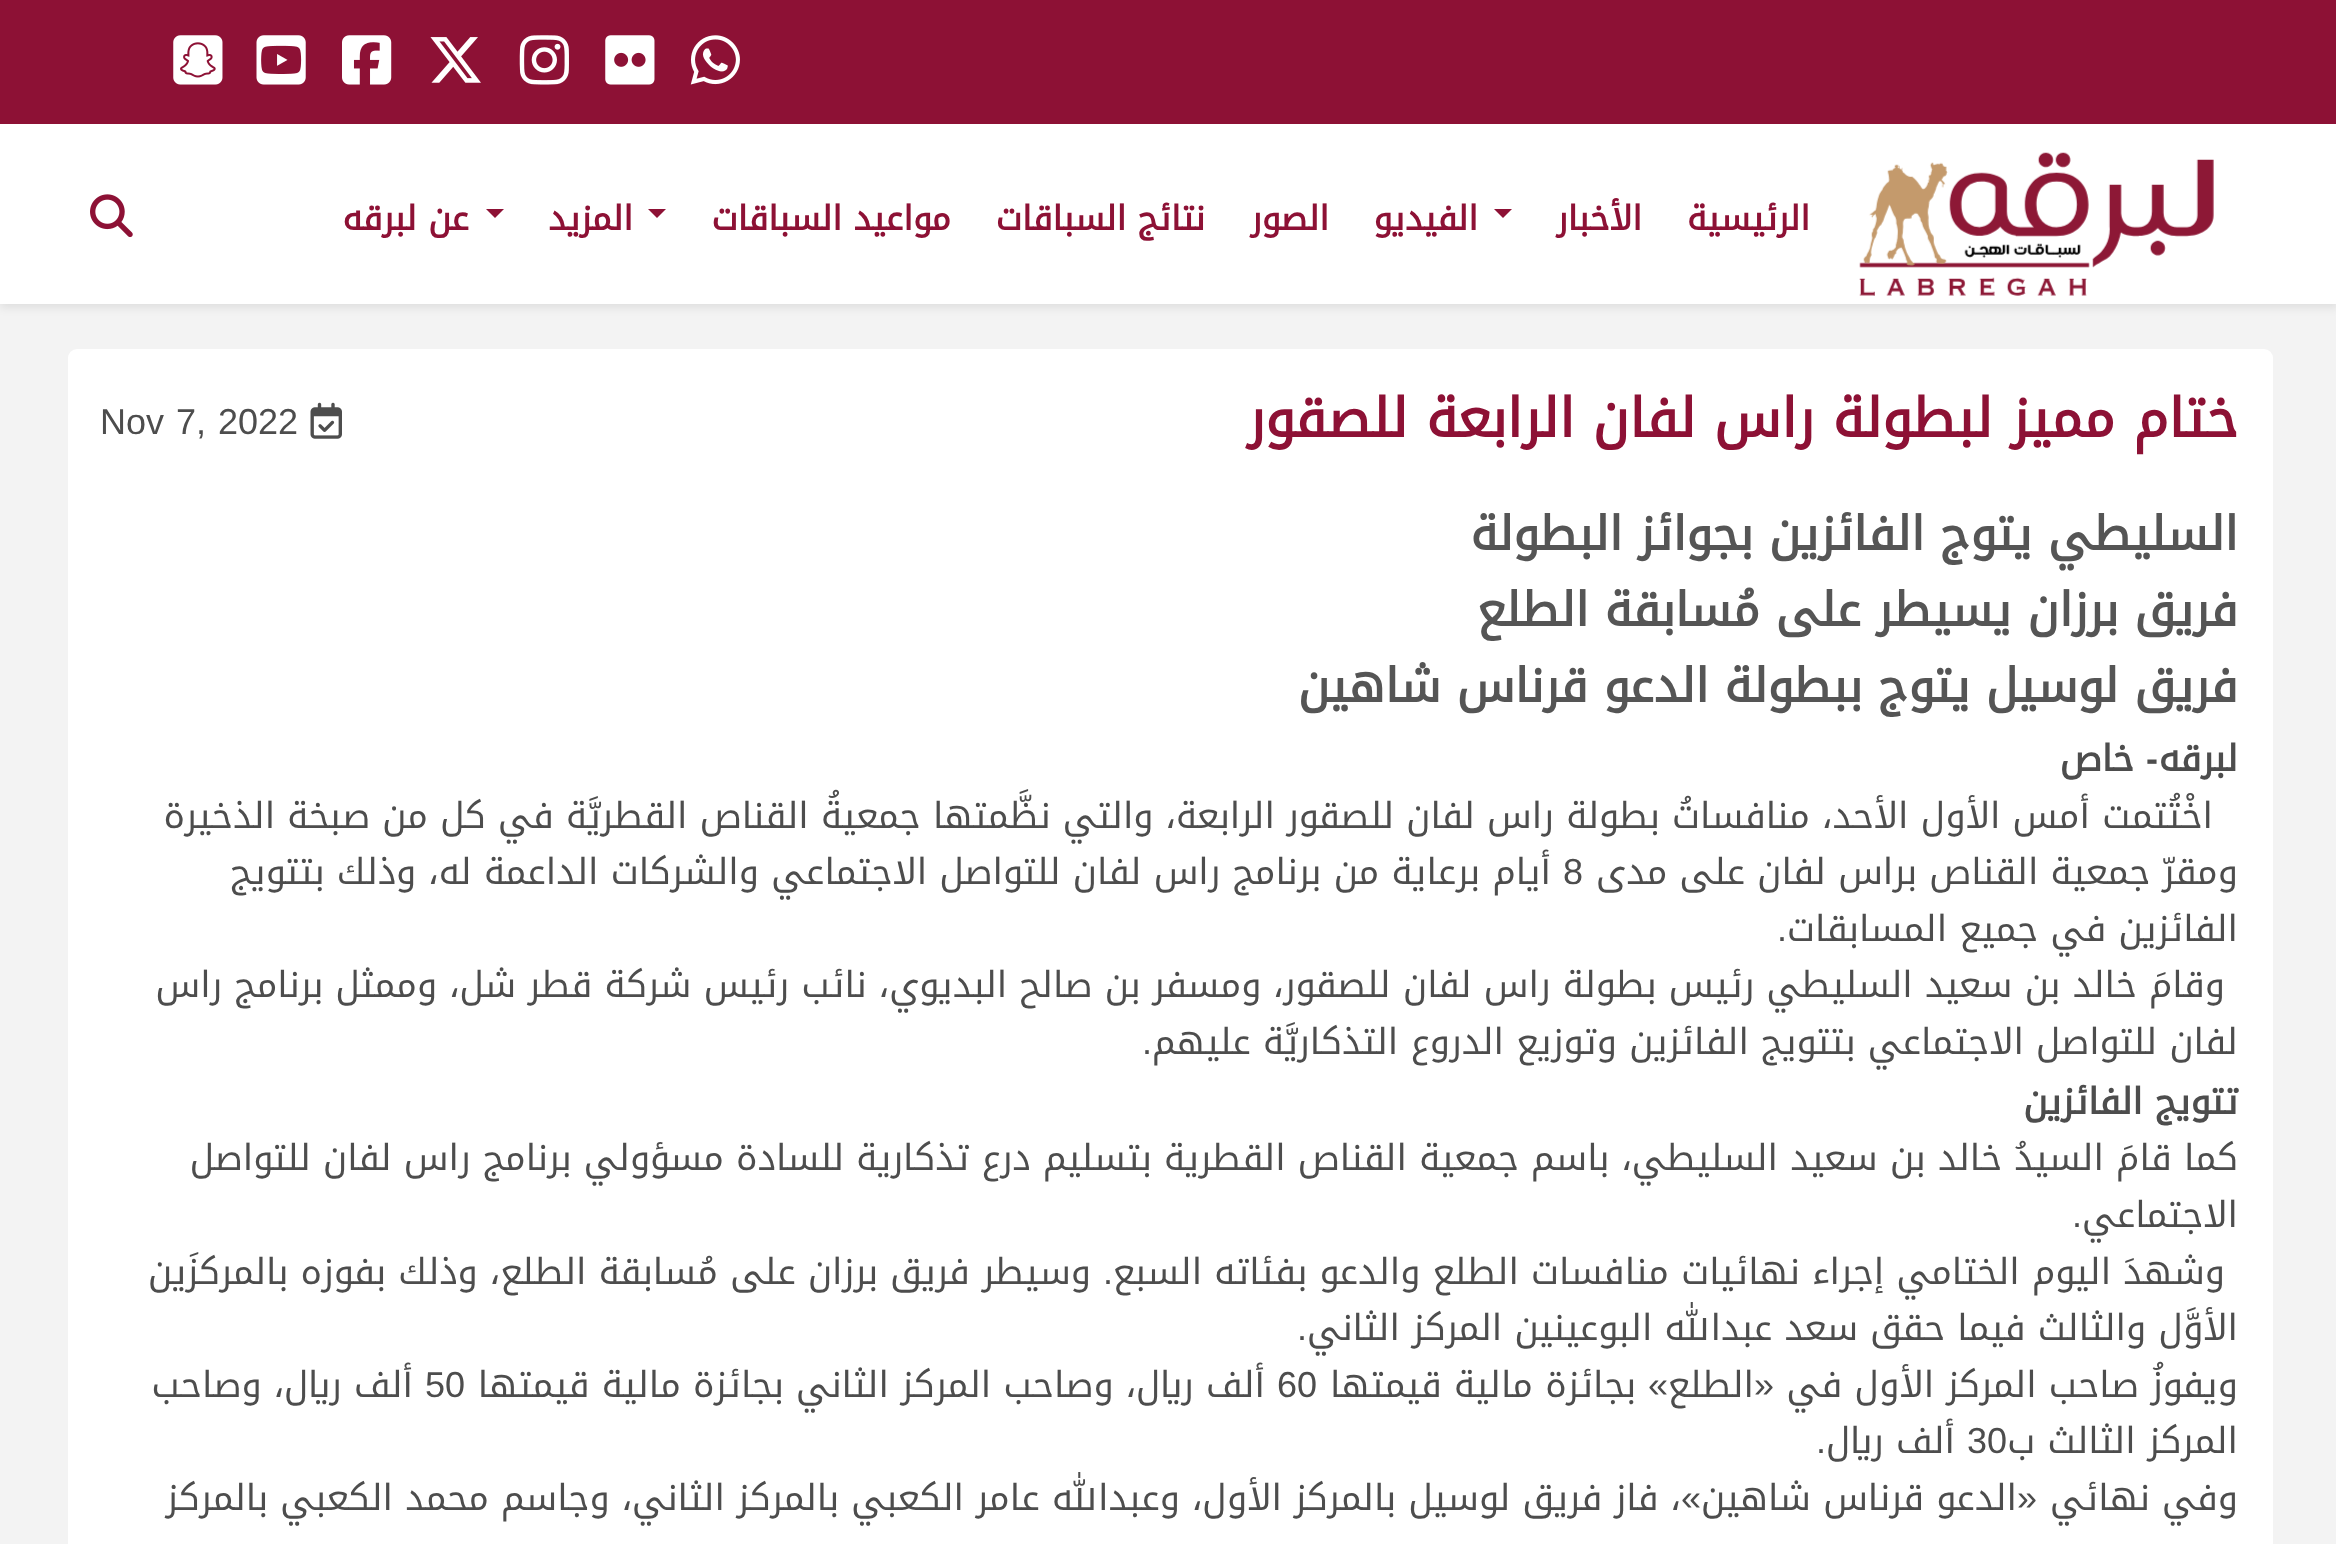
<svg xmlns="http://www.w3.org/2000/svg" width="2336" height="1544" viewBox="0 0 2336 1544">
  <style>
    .t1 { font: bold 33.75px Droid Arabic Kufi; direction: rtl; fill: #8d1135; }
    .t2 { font: bold 54px Droid Arabic Kufi; direction: rtl; fill: #8d1135; }
    .t3 { font: 36px Liberation Sans; fill: #4d4d4d; }
    .t4 { font: bold 46.8px Droid Arabic Kufi; direction: rtl; fill: #555; }
    .t5 { font: bold 36px Droid Arabic Kufi; direction: rtl; fill: #4d4d4d; }
    .t6 { font: bold 36px Liberation Sans; direction: rtl; fill: #4d4d4d; }
    .t7 { font: 36px Droid Arabic Kufi; direction: rtl; fill: #4d4d4d; }
    .t8 { font: 36px Liberation Sans; direction: rtl; fill: #4d4d4d; }
  </style>
  <rect width="100%" height="100%" fill="#f3f3f3"/>
  <rect x="0" y="5" width="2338" height="303" fill="#00000014" filter="blur(4.5px)"/>
  <rect x="0" y="124" width="2336" height="180" fill="#fff"/>
  <rect x="0" y="0" width="2336" height="124" fill="#8d1135"/>
  <image x="690" y="35" width="50" height="50" href="images/1.png"/>
  <image x="605" y="35" width="50" height="50" href="images/2.png"/>
  <image x="519" y="35" width="50" height="50" href="images/3.png"/>
  <image x="430" y="37" width="51" height="46" href="images/4.png"/>
  <image x="342" y="35" width="50" height="50" href="images/5.png"/>
  <image x="256" y="35" width="50" height="50" href="images/6.png"/>
  <image x="173" y="35" width="50" height="50" href="images/7.png"/>
  <image x="1859" y="152" width="355" height="144" href="images/8.png"/>
  <text x="1810" y="230" class="t1">الرئيسية</text>
  <text x="1642" y="230" class="t1">الأخبار</text>
  <path d="M1494 209H1512L1503 218Z" fill="#8d1135"/>
  <text x="1478" y="230" class="t1">الفيديو</text>
  <text x="1329" y="230" class="t1">الصور</text>
  <text x="1205" y="230" class="t1">نتائج السباقات</text>
  <text x="951" y="230" class="t1">مواعيد السباقات</text>
  <path d="M648 209H666L657 218Z" fill="#8d1135"/>
  <text x="633" y="230" class="t1">المزيد</text>
  <path d="M486 209H504L495 218Z" fill="#8d1135"/>
  <text x="469" y="230" class="t1">عن لبرقه</text>
  <image x="90" y="194" width="43" height="44" href="images/9.png"/>
  <rect x="68" y="349" width="2205" height="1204" rx="9" fill="#fff"/>
  <text x="2238" y="437" class="t2">ختام مميز لبطولة راس لفان الرابعة للصقور</text>
  <image x="310" y="402" width="32" height="37" href="images/10.png"/>
  <text x="100" y="434" word-spacing="2" class="t3">Nov 7, 2022</text>
  <text x="2238" y="550" class="t4">السليطي يتوج الفائزين بجوائز البطولة</text>
  <text x="2238" y="626" class="t4">فريق برزان يسيطر على مُسابقة الطلع</text>
  <text x="2238" y="702" class="t4">فريق لوسيل يتوج ببطولة الدعو قرناس شاهين</text>
  <text x="2238" y="771" class="t5">لبرقه</text>
  <text x="2158" y="771" class="t6">-</text>
  <text x="2134" y="771" class="t5">خاص</text>
  <text x="2213" y="828" class="t7">اخْتُتمت أمس الأول الأحد، منافساتُ بطولة راس لفان للصقور الرابعة، والتي نظَّمتها جمعيةُ القناص القطريَّة في كل من صبخة الذخيرة</text>
  <text x="2238" y="884" class="t7">ومقرّ جمعية القناص براس لفان على مدى</text>
  <text x="1563" y="884" class="t3">8</text>
  <text x="1551" y="884" class="t7">أيام برعاية من برنامج راس لفان للتواصل الاجتماعي والشركات الداعمة له، وذلك بتتويج</text>
  <text x="2238" y="941" class="t7">الفائزين في جميع المسابقات</text>
  <text x="1787" y="941" class="t8">.</text>
  <text x="2225" y="997" class="t7">وقامَ خالد بن سعيد السليطي رئيس بطولة راس لفان للصقور، ومسفر بن صالح البديوي، نائب رئيس شركة قطر شل، وممثل برنامج راس</text>
  <text x="2238" y="1054" class="t7">لفان للتواصل الاجتماعي بتتويج الفائزين وتوزيع الدروع التذكاريَّة عليهم</text>
  <text x="1152" y="1054" class="t8">.</text>
  <text x="2238" y="1114" class="t5">تتويج الفائزين</text>
  <text x="2238" y="1170" class="t7">كما قامَ السيدُ خالد بن سعيد السليطي، باسم جمعية القناص القطرية بتسليم درع تذكارية للسادة مسؤولي برنامج راس لفان للتواصل</text>
  <text x="2238" y="1227" class="t7">الاجتماعي</text>
  <text x="2082" y="1227" class="t8">.</text>
  <text x="2225" y="1284" class="t7">وشهدَ اليوم الختامي إجراء نهائيات منافسات الطلع والدعو بفئاته السبع</text>
  <text x="1113" y="1284" class="t8">.</text>
  <text x="1091" y="1284" class="t7">وسيطر فريق برزان على مُسابقة الطلع، وذلك بفوزه بالمركزَين</text>
  <text x="2238" y="1340" class="t7">الأوَّل والثالث فيما حقق سعد عبدالله البوعينين المركز الثاني</text>
  <text x="1307" y="1340" class="t8">.</text>
  <text x="2238" y="1397" class="t7">ويفوزُ صاحب المركز الأول في</text>
  <text x="1774" y="1397" class="t8">«</text>
  <text x="1754" y="1397" class="t7">الطلع</text>
  <text x="1668" y="1397" class="t8">»</text>
  <text x="1636" y="1397" class="t7">بجائزة مالية قيمتها</text>
  <text x="1277" y="1397" class="t3">60</text>
  <text x="1265" y="1397" class="t7">ألف ريال، وصاحب المركز الثاني بجائزة مالية قيمتها</text>
  <text x="425" y="1397" class="t3">50</text>
  <text x="413" y="1397" class="t7">ألف ريال، وصاحب</text>
  <text x="2238" y="1453" class="t7">المركز الثالث ب</text>
  <text x="1967" y="1453" class="t3">30</text>
  <text x="1955" y="1453" class="t7">ألف ريال</text>
  <text x="1826" y="1453" class="t8">.</text>
  <text x="2238" y="1510" class="t7">وفي نهائي</text>
  <text x="2037" y="1510" class="t8">«</text>
  <text x="2017" y="1510" class="t7">الدعو قرناس شاهين</text>
  <text x="1701" y="1510" class="t8">»</text>
  <text x="1681" y="1510" class="t7">، فاز فريق لوسيل بالمركز الأول، وعبدالله عامر الكعبي بالمركز الثاني، وجاسم محمد الكعبي بالمركز</text>
</svg>
